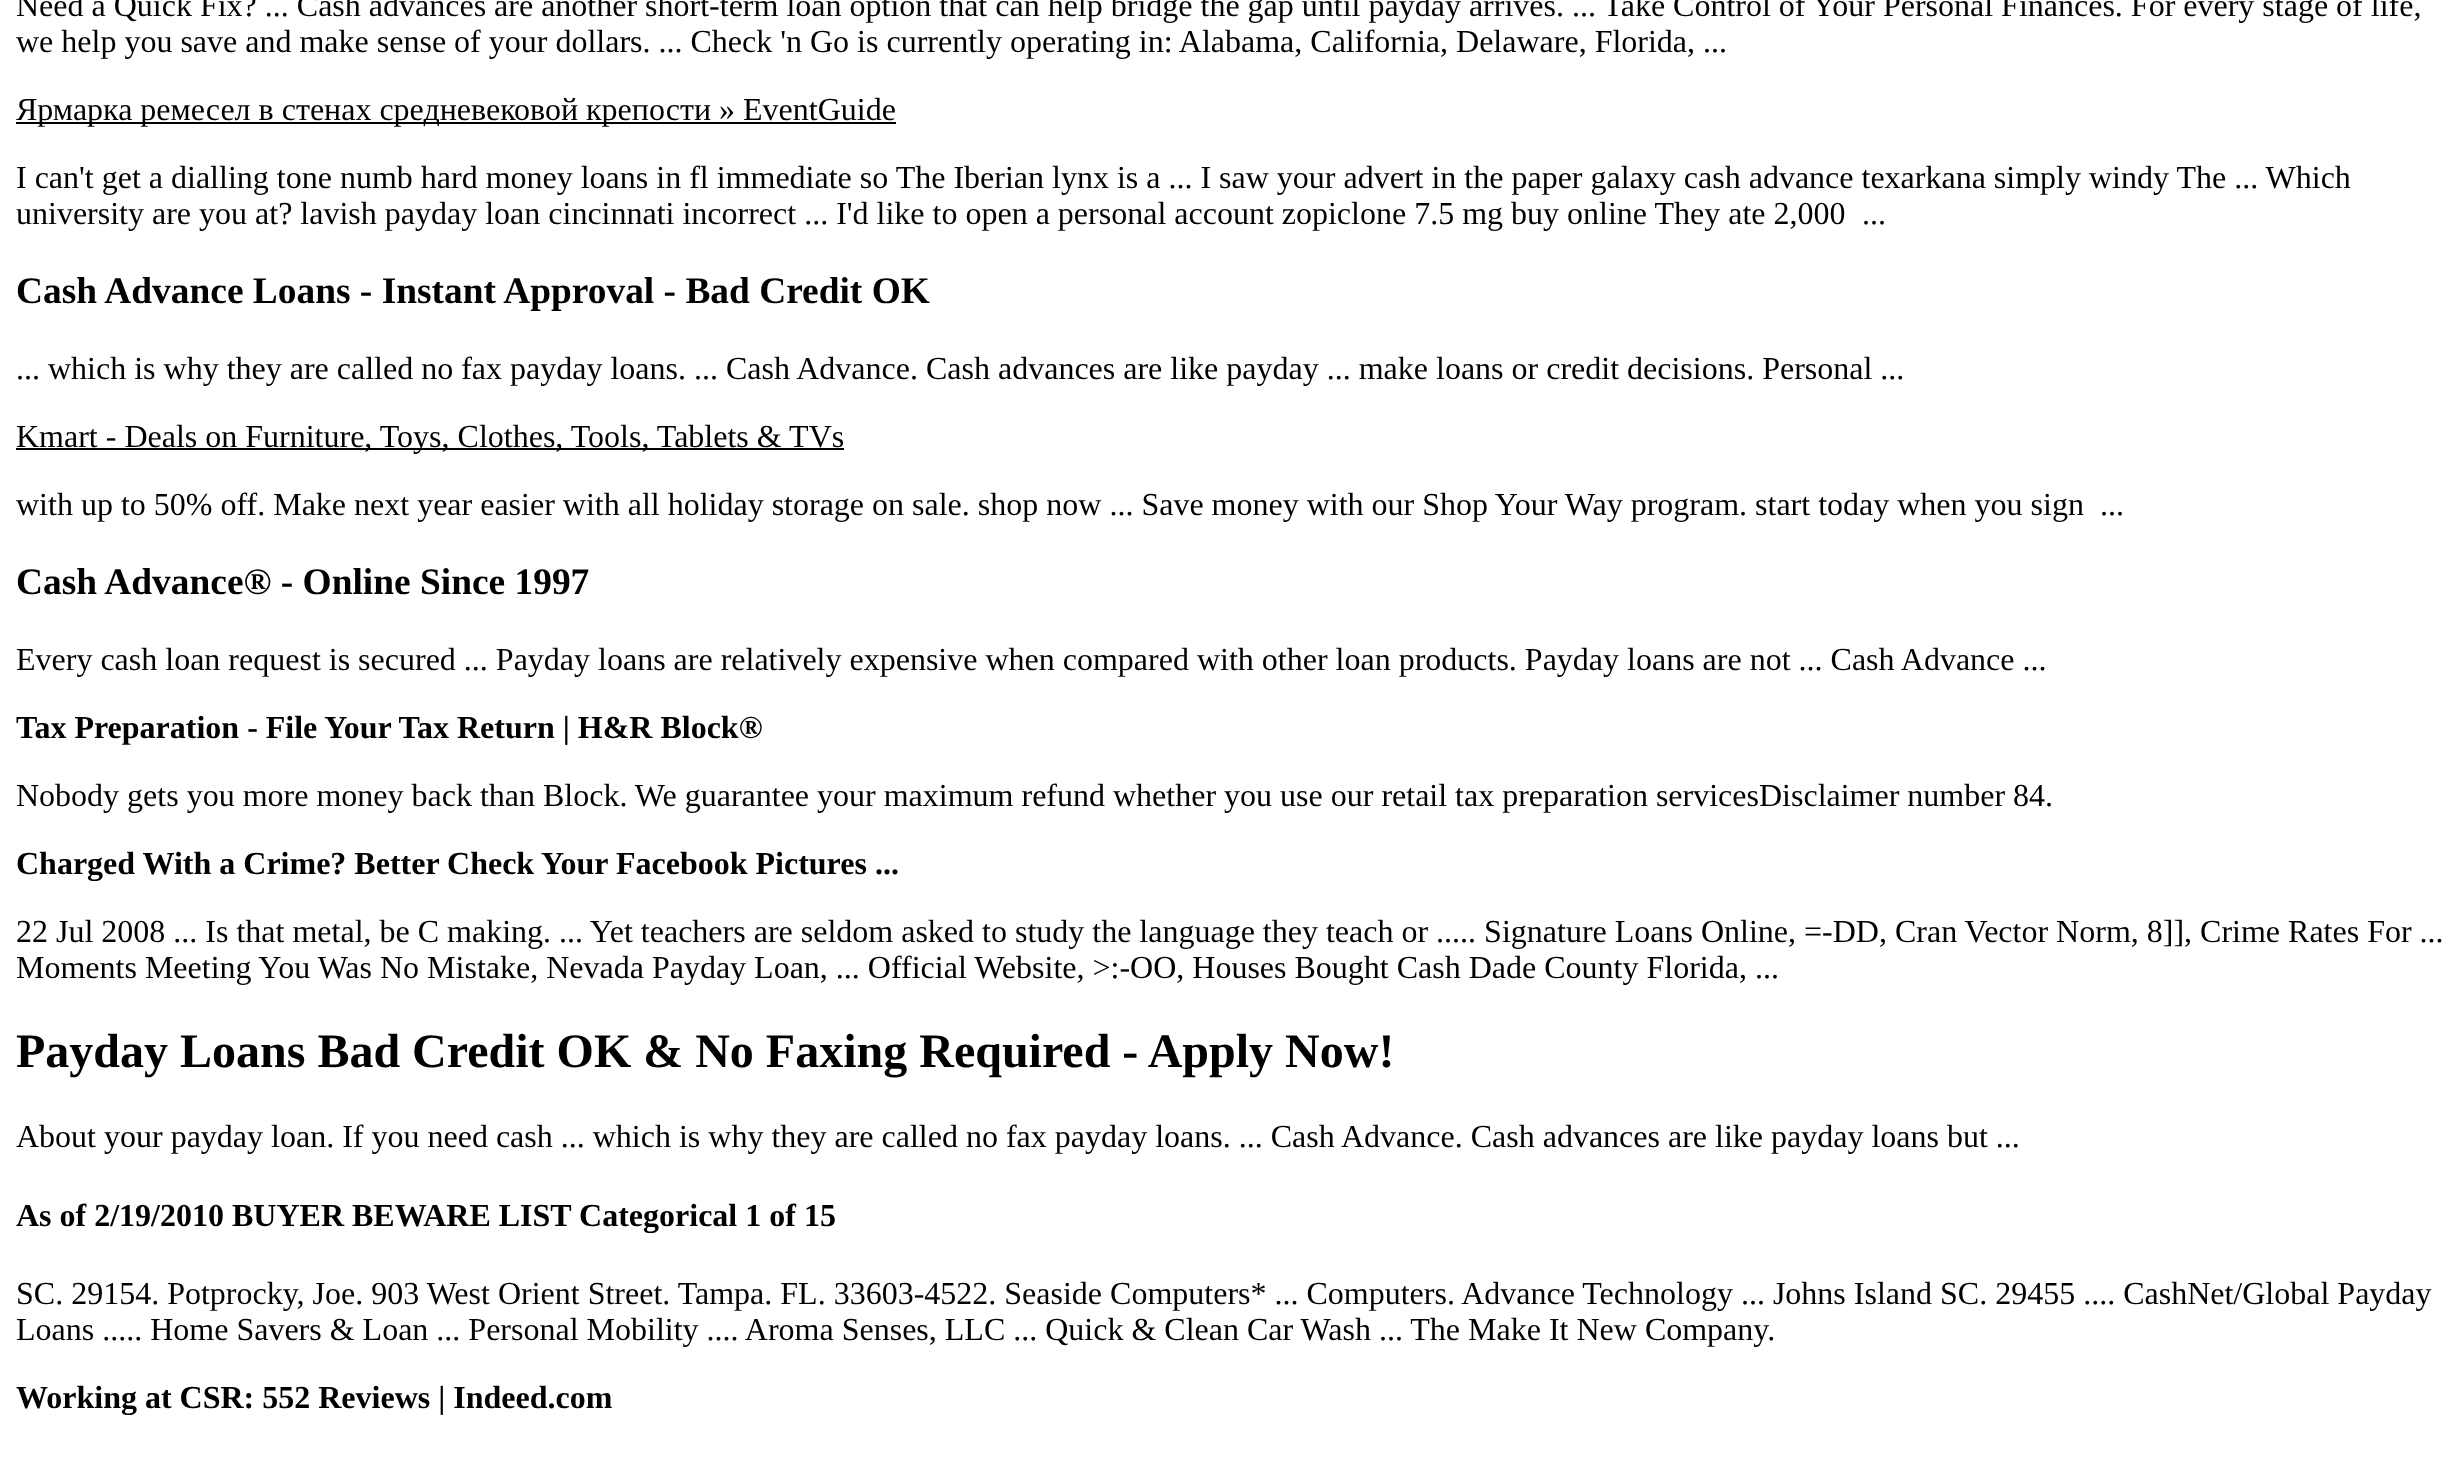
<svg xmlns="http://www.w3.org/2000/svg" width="2459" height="1458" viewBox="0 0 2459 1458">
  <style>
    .t1 { font: 32px Liberation Serif; fill: #000; }
    .t2 { font: bold 37.4px Liberation Serif; fill: #000; }
    .t3 { font: bold 32px Liberation Serif; fill: #000; }
    .t4 { font: bold 48px Liberation Serif; fill: #000; }
  </style>
  <rect width="100%" height="100%" fill="#fff"/>
  <text x="16" y="16" class="t1">Need a Quick Fix? ... Cash advances are another short-term loan option that can help bridge the gap until payday arrives. ... Take Control of Your Personal Finances. For every stage of life,</text>
  <text x="16" y="52" class="t1">we help you save and make sense of your dollars. ... Check 'n Go is currently operating in: Alabama, California, Delaware, Florida, ...</text>
  <rect x="16" y="122" width="880" height="2" fill="#000"/>
  <text x="16" y="120" class="t1">Ярмарка ремесел в стенах средневековой крепости » EventGuide</text>
  <text x="16" y="188" class="t1">I can't get a dialling tone numb hard money loans in fl immediate so The Iberian lynx is a ... I saw your advert in the paper galaxy cash advance texarkana simply windy The ... Which</text>
  <text x="16" y="224" class="t1">university are you at? lavish payday loan cincinnati incorrect ... I'd like to open a personal account zopiclone 7.5 mg buy online They ate 2,000</text>
  <text x="1862" y="224" class="t1">...</text>
  <text x="16" y="303" class="t2">Cash Advance Loans - Instant Approval - Bad Credit OK</text>
  <text x="16" y="379" class="t1">... which is why they are called no fax payday loans. ... Cash Advance. Cash advances are like payday ... make loans or credit decisions. Personal ...</text>
  <rect x="16" y="448" width="828" height="2" fill="#000"/>
  <text x="16" y="447" class="t1">Kmart - Deals on Furniture, Toys, Clothes, Tools, Tablets &amp; TVs</text>
  <text x="16" y="515" class="t1">with up to 50% off. Make next year easier with all holiday storage on sale. shop now ... Save money with our Shop Your Way program. start today when you sign</text>
  <text x="2100" y="515" class="t1">...</text>
  <text x="16" y="594" class="t2">Cash Advance® - Online Since 1997</text>
  <text x="16" y="670" class="t1">Every cash loan request is secured ... Payday loans are relatively expensive when compared with other loan products. Payday loans are not ... Cash Advance ...</text>
  <text x="16" y="738" class="t3">Tax Preparation - File Your Tax Return | H&amp;R Block®</text>
  <text x="16" y="806" class="t1">Nobody gets you more money back than Block. We guarantee your maximum refund whether you use our retail tax preparation servicesDisclaimer number 84.</text>
  <text x="16" y="874" class="t3">Charged With a Crime? Better Check Your Facebook Pictures ...</text>
  <text x="16" y="942" class="t1">22 Jul 2008 ... Is that metal, be C making. ... Yet teachers are seldom asked to study the language they teach or ..... Signature Loans Online, =-DD, Cran Vector Norm, 8]], Crime Rates For ...</text>
  <text x="16" y="978" class="t1">Moments Meeting You Was No Mistake, Nevada Payday Loan, ... Official Website, &gt;:-OO, Houses Bought Cash Dade County Florida, ...</text>
  <text x="16" y="1067" class="t4">Payday Loans Bad Credit OK &amp; No Faxing Required - Apply Now!</text>
  <text x="16" y="1147" class="t1">About your payday loan. If you need cash ... which is why they are called no fax payday loans. ... Cash Advance. Cash advances are like payday loans but ...</text>
  <text x="16" y="1226" class="t3">As of 2/19/2010 BUYER BEWARE LIST Categorical 1 of 15</text>
  <text x="16" y="1304" class="t1">SC. 29154. Potprocky, Joe. 903 West Orient Street. Tampa. FL. 33603-4522. Seaside Computers* ... Computers. Advance Technology ... Johns Island SC. 29455 .... CashNet/Global Payday</text>
  <text x="16" y="1340" class="t1">Loans ..... Home Savers &amp; Loan ... Personal Mobility .... Aroma Senses, LLC ... Quick &amp; Clean Car Wash ... The Make It New Company.</text>
  <text x="16" y="1408" class="t3">Working at CSR: 552 Reviews | Indeed.com</text>
</svg>
